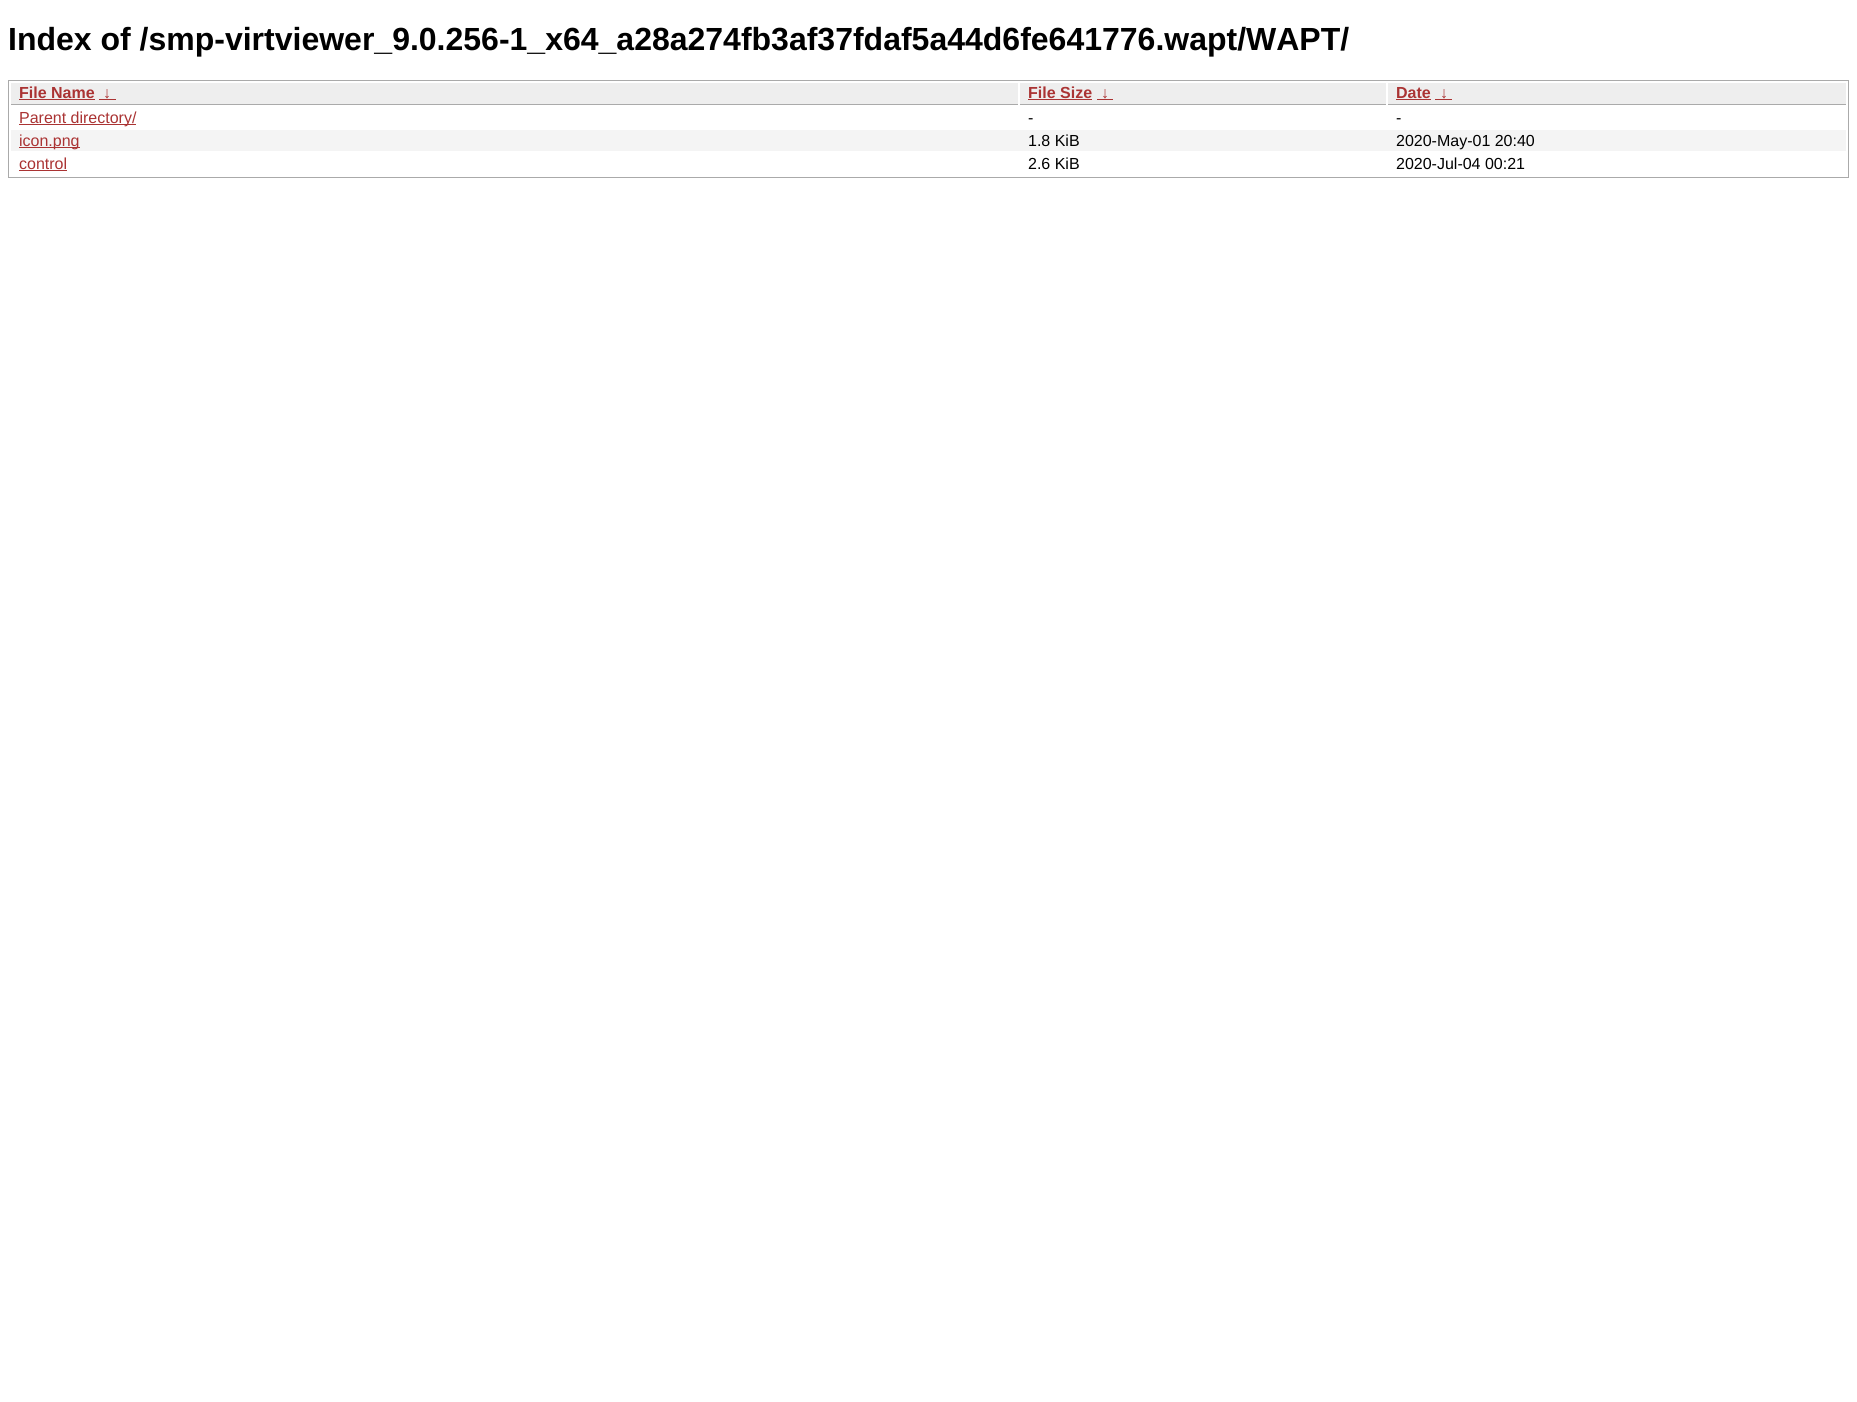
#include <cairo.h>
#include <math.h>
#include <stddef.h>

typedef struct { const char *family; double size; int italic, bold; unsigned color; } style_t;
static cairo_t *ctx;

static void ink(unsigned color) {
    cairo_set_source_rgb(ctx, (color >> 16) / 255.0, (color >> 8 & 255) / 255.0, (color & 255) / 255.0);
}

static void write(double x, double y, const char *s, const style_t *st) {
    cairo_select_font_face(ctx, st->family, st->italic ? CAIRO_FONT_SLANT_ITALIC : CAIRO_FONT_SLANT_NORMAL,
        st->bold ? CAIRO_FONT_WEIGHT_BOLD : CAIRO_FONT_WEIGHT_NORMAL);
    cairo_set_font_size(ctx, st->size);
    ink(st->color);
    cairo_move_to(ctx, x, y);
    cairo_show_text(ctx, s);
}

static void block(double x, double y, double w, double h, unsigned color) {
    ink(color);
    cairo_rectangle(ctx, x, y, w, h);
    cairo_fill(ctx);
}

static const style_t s1 = {"Liberation Sans", 32, 0, 1, 0x000000};
static const style_t s2 = {"Liberation Sans", 16, 0, 1, 0xaa3333};
static const style_t s3 = {"Liberation Sans", 16, 0, 0, 0xaa3333};
static const style_t s4 = {"Liberation Sans", 16, 0, 0, 0x000000};

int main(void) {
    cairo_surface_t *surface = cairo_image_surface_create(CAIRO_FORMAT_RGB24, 1857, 1402);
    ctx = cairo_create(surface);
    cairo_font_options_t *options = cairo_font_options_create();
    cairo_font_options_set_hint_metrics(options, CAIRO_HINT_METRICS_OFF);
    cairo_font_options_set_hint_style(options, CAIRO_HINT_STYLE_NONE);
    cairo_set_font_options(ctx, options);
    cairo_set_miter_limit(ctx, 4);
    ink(0xffffff);
    cairo_paint(ctx);
    write(8, 50, "Index of /smp-virtviewer_9.0.256-1_x64_a28a274fb3af37fdaf5a44d6fe641776.wapt/WAPT/", &s1);
    cairo_rectangle(ctx, 8.5, 80.5, 1840, 97);
    ink(0xaaaaaa);
    cairo_set_line_width(ctx, 1);
    cairo_stroke(ctx);
    block(11, 83, 1007, 21, 0xeeeeee);
    block(11, 104, 1007, 1, 0xaaaaaa);
    write(19, 98, "File Name", &s2);
    block(19, 99, 76, 1, 0xaa3333);
    write(103, 98, "↓", &s2);
    block(99, 99, 17, 1, 0xaa3333);
    block(1020, 83, 366, 21, 0xeeeeee);
    block(1020, 104, 366, 1, 0xaaaaaa);
    write(1028, 98, "File Size", &s2);
    block(1028, 99, 64, 1, 0xaa3333);
    write(1101, 98, "↓", &s2);
    block(1097, 99, 16, 1, 0xaa3333);
    block(1388, 83, 458, 21, 0xeeeeee);
    block(1388, 104, 458, 1, 0xaaaaaa);
    write(1396, 98, "Date", &s2);
    block(1396, 99, 35, 1, 0xaa3333);
    write(1440, 98, "↓", &s2);
    block(1435, 99, 17, 1, 0xaa3333);
    block(19, 124, 117, 1, 0xaa3333);
    write(19, 123, "Parent directory/", &s3);
    write(1028, 123, "-", &s4);
    write(1396, 123, "-", &s4);
    block(11, 130, 1835, 21, 0xf4f4f4);
    block(19, 147, 61, 1, 0xaa3333);
    write(19, 146, "icon.png", &s3);
    write(1028, 146, "1.8 KiB", &s4);
    write(1396, 146, "2020-May-01 20:40", &s4);
    write(19, 169, "control", &s3);
    block(19, 170, 48, 1, 0xaa3333);
    write(1028, 169, "2.6 KiB", &s4);
    write(1396, 169, "2020-Jul-04 00:21", &s4);
    cairo_surface_write_to_png(surface, "screenshot.png");
    cairo_font_options_destroy(options);
    cairo_destroy(ctx);
    cairo_surface_destroy(surface);
    return 0;
}
